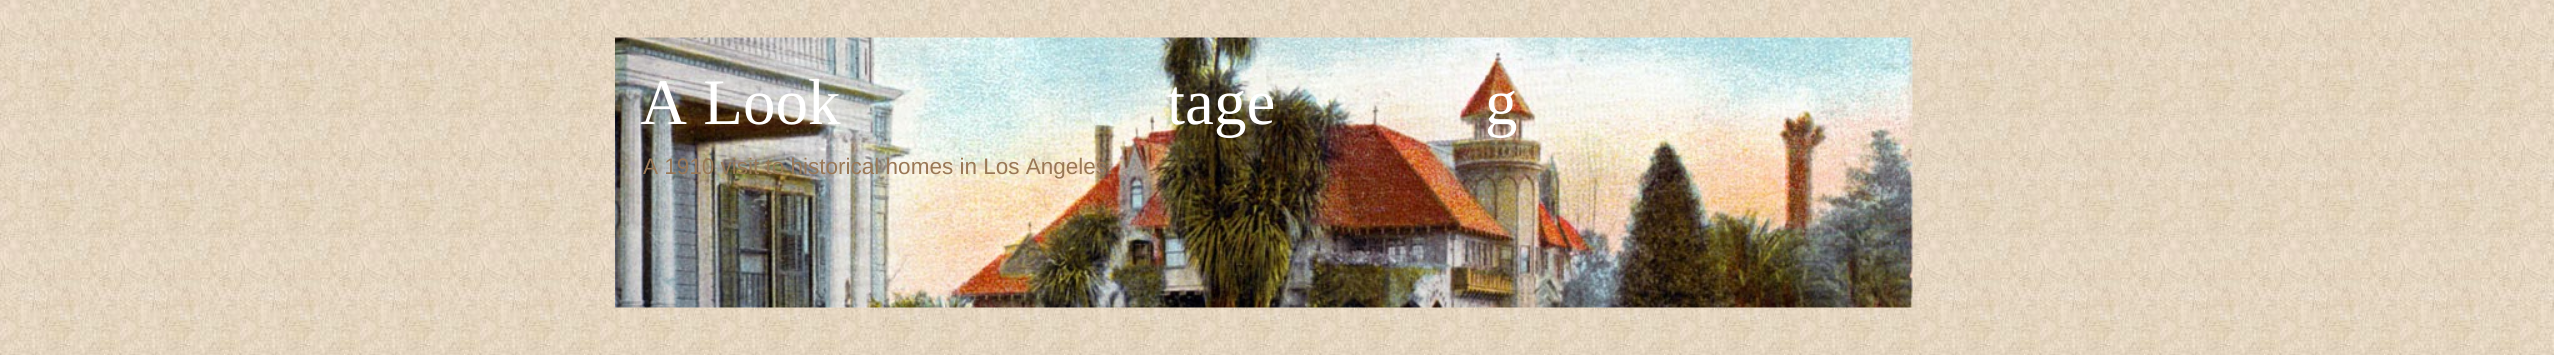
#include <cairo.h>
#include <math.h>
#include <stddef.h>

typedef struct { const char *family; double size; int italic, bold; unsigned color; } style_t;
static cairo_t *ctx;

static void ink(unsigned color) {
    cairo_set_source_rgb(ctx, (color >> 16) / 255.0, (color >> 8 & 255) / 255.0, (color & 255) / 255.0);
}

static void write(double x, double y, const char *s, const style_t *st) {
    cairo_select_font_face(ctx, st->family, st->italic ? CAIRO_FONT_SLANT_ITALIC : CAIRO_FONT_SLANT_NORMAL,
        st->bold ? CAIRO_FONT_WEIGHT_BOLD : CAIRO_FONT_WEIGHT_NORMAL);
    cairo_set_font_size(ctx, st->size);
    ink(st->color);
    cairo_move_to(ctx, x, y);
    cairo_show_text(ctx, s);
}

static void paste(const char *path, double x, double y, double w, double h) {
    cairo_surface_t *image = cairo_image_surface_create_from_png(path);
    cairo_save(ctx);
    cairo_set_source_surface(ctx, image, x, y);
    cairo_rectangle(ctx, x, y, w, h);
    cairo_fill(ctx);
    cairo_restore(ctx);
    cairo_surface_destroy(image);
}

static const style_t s1 = {"Liberation Serif", 65, 0, 0, 0xffffff};
static const style_t s2 = {"Liberation Sans", 22.5, 0, 0, 0x997755};

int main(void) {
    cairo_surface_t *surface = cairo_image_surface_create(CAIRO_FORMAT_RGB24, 2554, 355);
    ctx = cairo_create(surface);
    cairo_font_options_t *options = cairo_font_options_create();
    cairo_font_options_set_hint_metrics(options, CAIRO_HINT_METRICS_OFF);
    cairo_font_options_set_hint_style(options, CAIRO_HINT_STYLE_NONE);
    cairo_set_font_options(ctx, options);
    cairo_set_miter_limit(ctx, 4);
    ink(0xffffff);
    cairo_paint(ctx);
    paste("pic1.png", 0, 0, 2554, 355);
    paste("pic2.png", 615, 37, 1298, 271);
    write(640, 124, "A Look", &s1);
    write(1167, 124, "tage", &s1);
    write(1485, 124, "g", &s1);
    write(643, 174, "A 1910 visit to historical homes in Los Angeles.", &s2);
    cairo_surface_write_to_png(surface, "screenshot.png");
    cairo_font_options_destroy(options);
    cairo_destroy(ctx);
    cairo_surface_destroy(surface);
    return 0;
}
